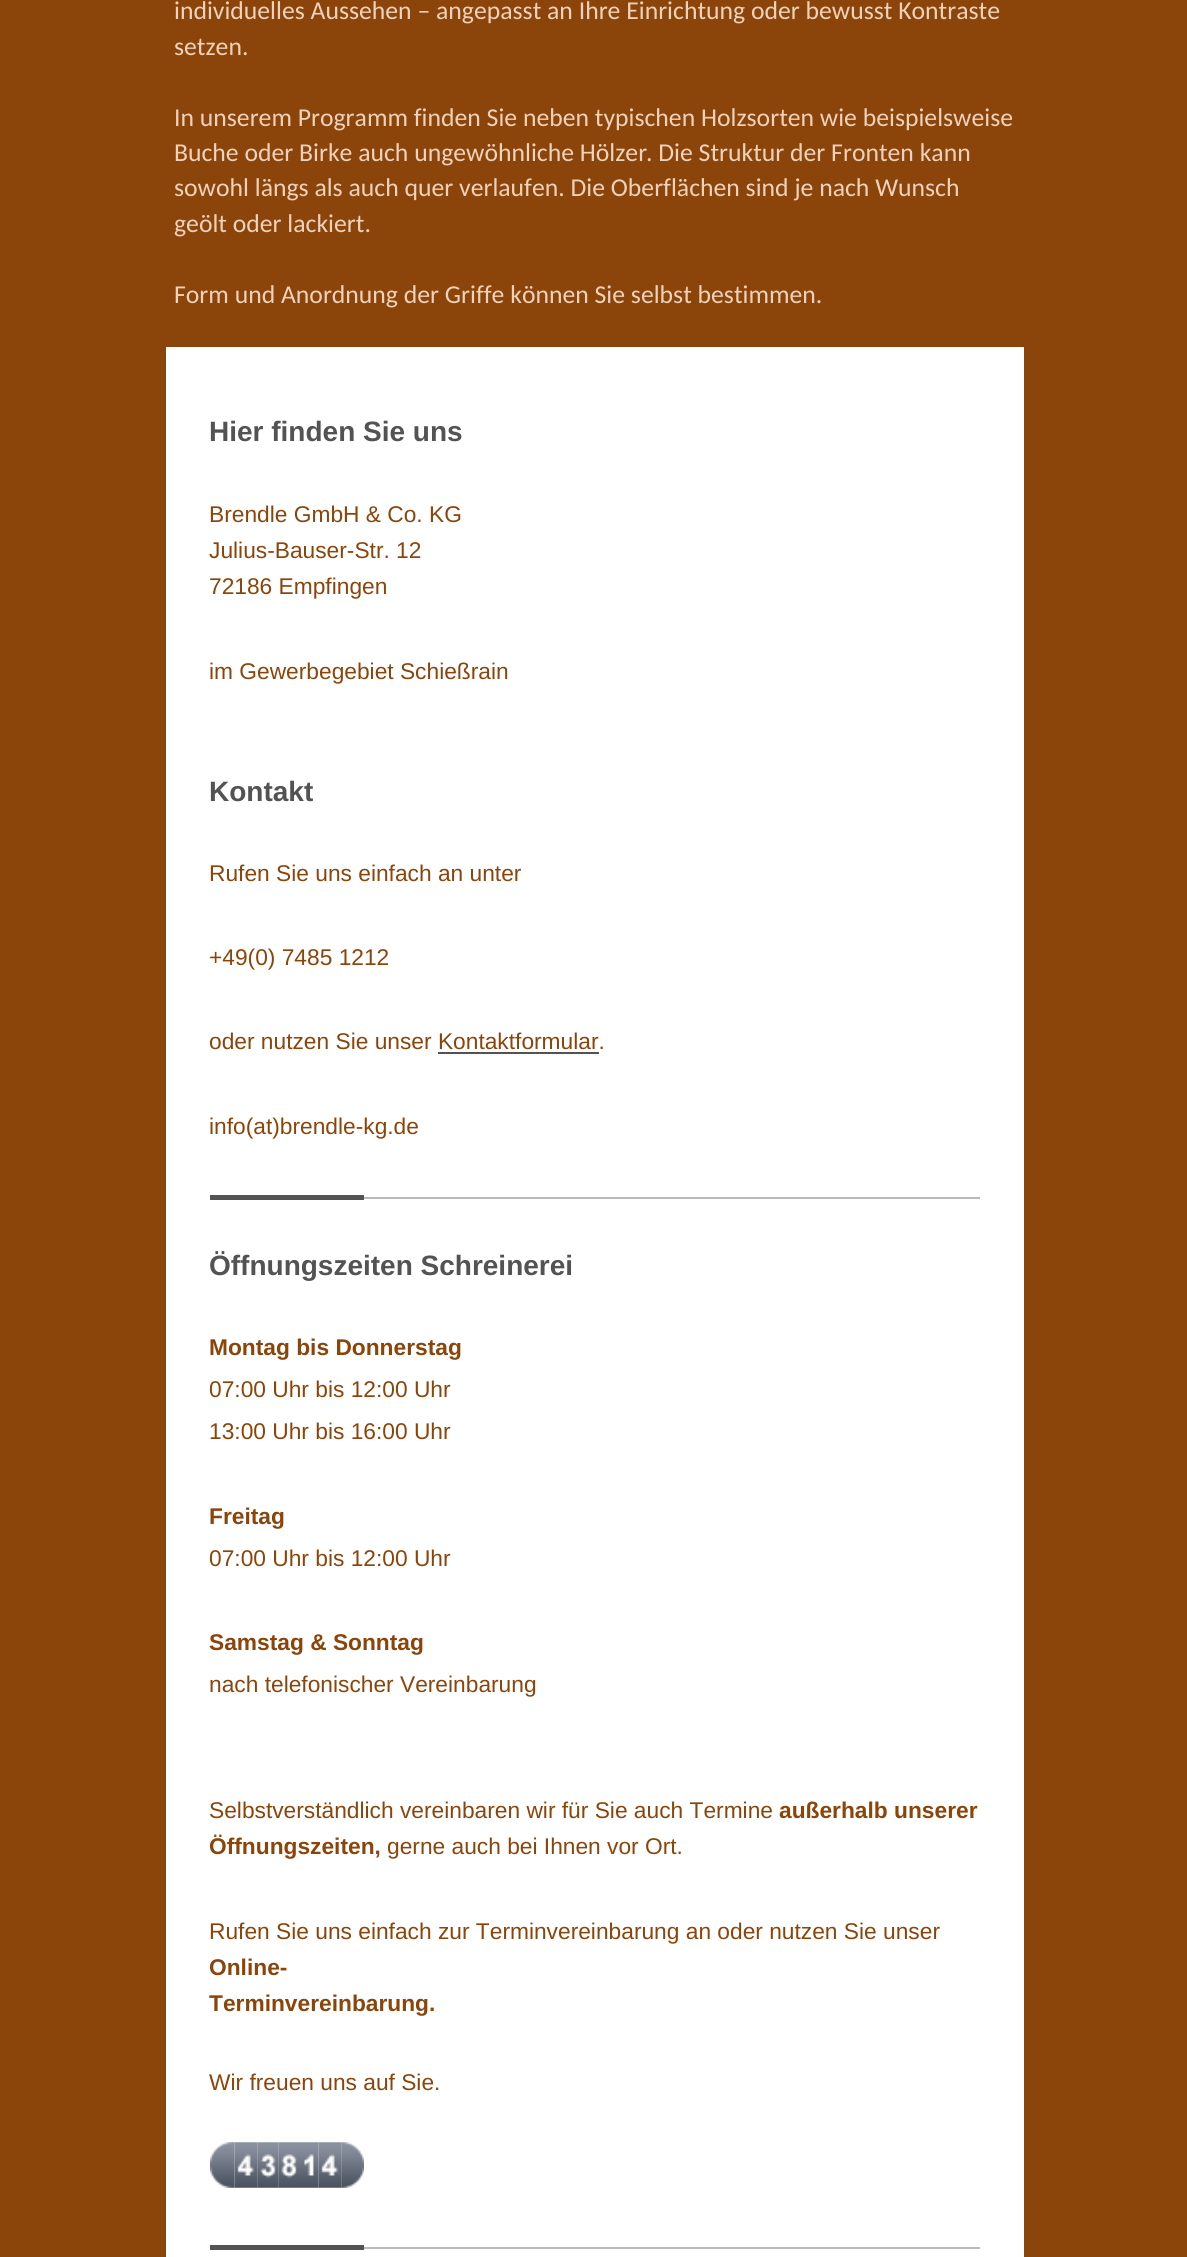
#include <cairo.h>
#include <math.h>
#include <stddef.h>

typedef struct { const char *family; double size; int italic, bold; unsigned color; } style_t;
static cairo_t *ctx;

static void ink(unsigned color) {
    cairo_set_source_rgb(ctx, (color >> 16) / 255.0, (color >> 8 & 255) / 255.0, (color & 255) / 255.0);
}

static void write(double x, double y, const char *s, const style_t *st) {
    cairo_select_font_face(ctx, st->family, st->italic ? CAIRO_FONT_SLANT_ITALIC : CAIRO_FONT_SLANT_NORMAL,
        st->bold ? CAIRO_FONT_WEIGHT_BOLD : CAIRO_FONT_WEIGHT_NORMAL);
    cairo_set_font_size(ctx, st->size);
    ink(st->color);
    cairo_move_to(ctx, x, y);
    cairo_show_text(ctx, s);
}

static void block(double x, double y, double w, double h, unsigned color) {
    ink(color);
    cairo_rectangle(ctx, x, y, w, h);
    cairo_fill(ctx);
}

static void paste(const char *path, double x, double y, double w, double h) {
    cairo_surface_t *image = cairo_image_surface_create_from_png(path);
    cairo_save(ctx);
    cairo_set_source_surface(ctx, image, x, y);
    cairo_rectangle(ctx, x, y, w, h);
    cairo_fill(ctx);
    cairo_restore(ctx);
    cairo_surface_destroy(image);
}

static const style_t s1 = {"Carlito", 25.7, 0, 0, 0xf0d2ba};
static const style_t s2 = {"Liberation Sans", 28, 0, 1, 0x535353};
static const style_t s3 = {"Liberation Sans", 22.75, 0, 0, 0x8b450b};
static const style_t s4 = {"Liberation Sans", 22.75, 0, 1, 0x8b450b};

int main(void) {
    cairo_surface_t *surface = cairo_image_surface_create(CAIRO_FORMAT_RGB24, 1187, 2257);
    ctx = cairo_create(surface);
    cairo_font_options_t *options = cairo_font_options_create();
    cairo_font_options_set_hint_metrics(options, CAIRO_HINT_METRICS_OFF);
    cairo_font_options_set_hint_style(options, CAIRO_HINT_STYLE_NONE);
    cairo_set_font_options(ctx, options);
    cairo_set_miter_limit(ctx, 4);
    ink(0x8b450b);
    cairo_paint(ctx);
    write(174, 19, "individuelles Aussehen – angepasst an Ihre Einrichtung oder bewusst Kontraste", &s1);
    write(174, 55, "setzen.", &s1);
    write(174, 126, "In unserem Programm finden Sie neben typischen Holzsorten wie beispielsweise", &s1);
    write(174, 161, "Buche oder Birke auch ungewöhnliche Hölzer", &s1);
    write(646, 161, ". Die Struktur der Fronten kann", &s1);
    write(174, 196, "sowohl längs als auch quer verlaufen. Die Oberflächen sind je nach Wunsch", &s1);
    write(174, 232, "geölt oder lackiert.", &s1);
    write(174, 303, "Form und Anordnung der Griffe können Sie selbst bestimmen.", &s1);
    block(166, 347, 858, 1910, 0xffffff);
    write(209, 441, "Hier finden Sie uns", &s2);
    write(209, 522, "Brendle GmbH & Co. KG", &s3);
    write(209, 558, "Julius-Bauser-Str. 12", &s3);
    write(209, 594, "72186 Empfingen", &s3);
    write(209, 679, "im Gewerbegebiet Schießrain", &s3);
    write(209, 801, "Kontakt", &s2);
    write(209, 881, "Rufen Sie uns einfach an unter", &s3);
    write(209, 965, "+49(0) 7485 1212", &s3);
    write(209, 1049, "oder nutzen Sie unser Kontaktformular.", &s3);
    block(438, 1052, 161, 2, 0x535353);
    write(209, 1134, "info(at)brendle-kg.de", &s3);
    block(364, 1197, 616, 2, 0xbababa);
    block(210, 1195, 154, 5, 0x535353);
    write(209, 1275, "Öffnungszeiten Schreinerei", &s2);
    write(209, 1355, "Montag bis Donnerstag", &s4);
    write(209, 1397, "07:00 Uhr bis 12:00 Uhr", &s3);
    write(209, 1439, "13:00 Uhr bis 16:00 Uhr", &s3);
    write(209, 1524, "Freitag", &s4);
    write(209, 1566, "07:00 Uhr bis 12:00 Uhr", &s3);
    write(209, 1650, "Samstag & Sonntag", &s4);
    write(209, 1692, "nach telefonischer Vereinbarung", &s3);
    write(209, 1818, "Selbstverständlich vereinbaren wir für Sie auch Termine", &s3);
    write(779, 1818, "außerhalb unserer", &s4);
    write(209, 1854, "Öffnungszeiten,", &s4);
    write(387, 1854, "gerne auch bei Ihnen vor Ort.", &s3);
    write(209, 1939, "Rufen Sie uns einfach zur Terminvereinbarung an oder nutzen Sie unser", &s3);
    write(209, 1975, "Online-", &s4);
    write(209, 2011, "Terminvereinbarung.", &s4);
    write(209, 2090, "Wir freuen uns auf Sie.", &s3);
    paste("pic1.png", 210, 2142, 25, 46);
    paste("pic2.png", 234, 2142, 24, 46);
    paste("pic3.png", 257, 2142, 22, 46);
    paste("pic4.png", 278, 2142, 23, 46);
    paste("pic5.png", 301, 2142, 18, 46);
    paste("pic2.png", 318, 2142, 24, 46);
    paste("pic6.png", 341, 2142, 23, 46);
    block(364, 2247, 616, 2, 0xbababa);
    block(210, 2245, 154, 5, 0x535353);
    cairo_surface_write_to_png(surface, "screenshot.png");
    cairo_font_options_destroy(options);
    cairo_destroy(ctx);
    cairo_surface_destroy(surface);
    return 0;
}
